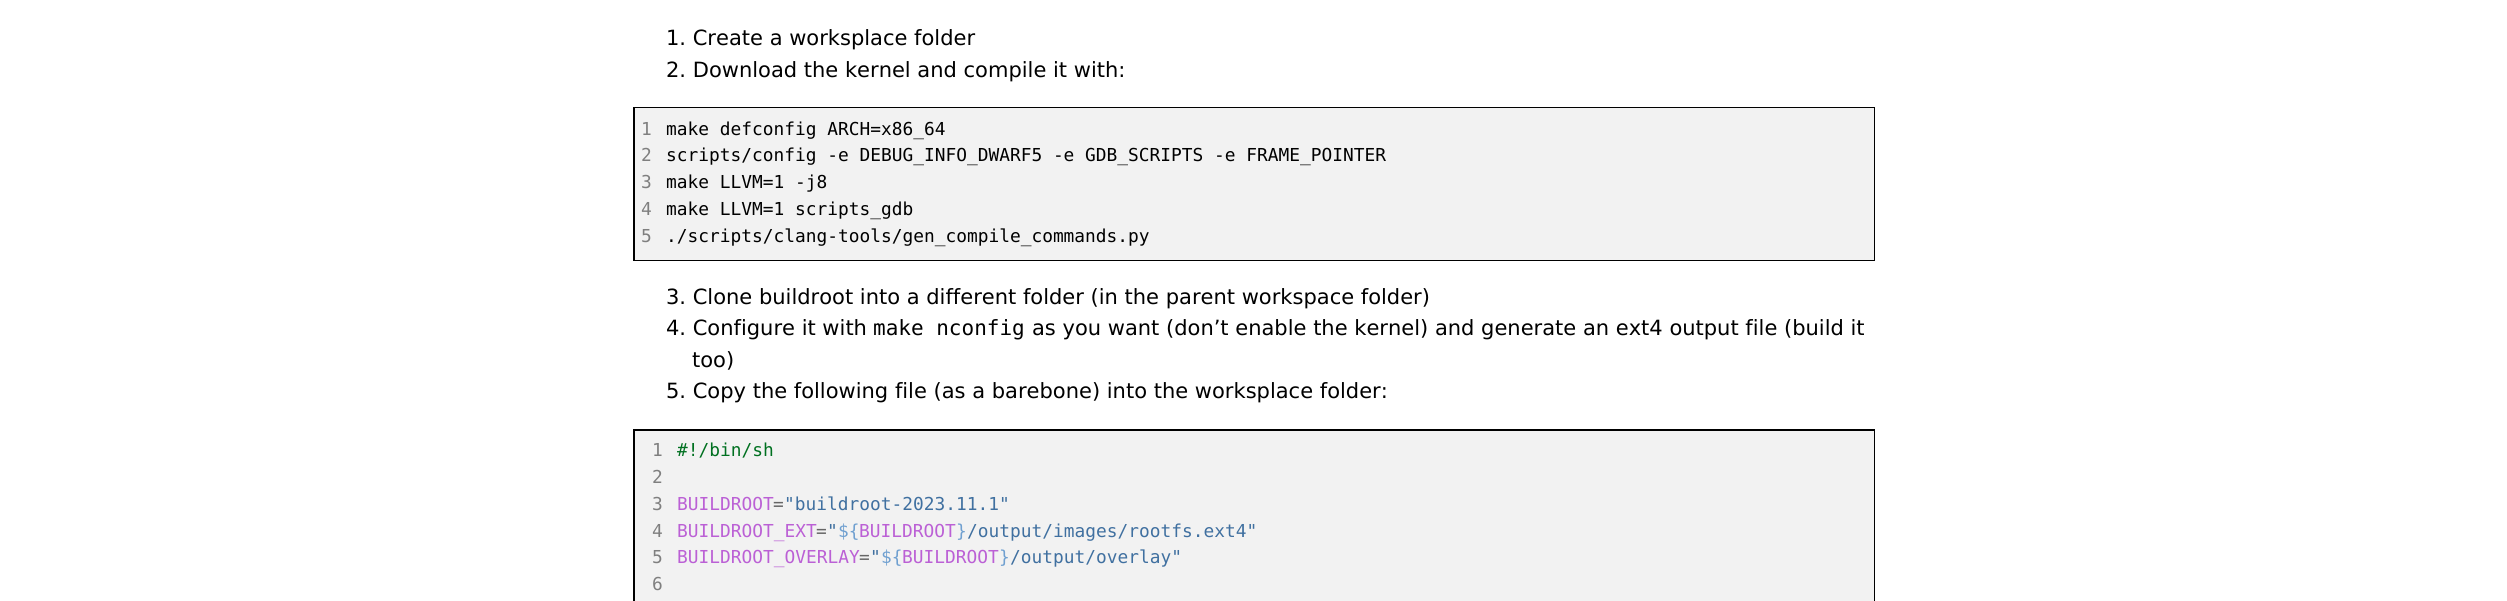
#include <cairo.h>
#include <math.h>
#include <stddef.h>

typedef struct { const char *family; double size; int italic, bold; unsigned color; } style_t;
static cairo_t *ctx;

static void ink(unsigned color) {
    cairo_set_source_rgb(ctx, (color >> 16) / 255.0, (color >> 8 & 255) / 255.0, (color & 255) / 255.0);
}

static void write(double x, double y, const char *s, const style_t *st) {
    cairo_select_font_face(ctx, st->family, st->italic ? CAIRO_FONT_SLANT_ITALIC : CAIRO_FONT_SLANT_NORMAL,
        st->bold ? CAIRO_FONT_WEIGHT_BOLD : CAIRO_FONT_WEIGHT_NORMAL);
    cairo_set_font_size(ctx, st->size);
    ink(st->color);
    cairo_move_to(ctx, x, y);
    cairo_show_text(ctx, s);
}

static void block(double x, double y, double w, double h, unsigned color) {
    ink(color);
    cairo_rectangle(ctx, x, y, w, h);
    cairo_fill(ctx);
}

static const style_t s1 = {"DejaVu Sans", 21, 0, 0, 0x000000};
static const style_t s2 = {"DejaVu Sans Mono", 17.85, 0, 0, 0x7f7f7f};
static const style_t s3 = {"DejaVu Sans Mono", 17.85, 0, 0, 0x000000};
static const style_t s4 = {"DejaVu Sans Mono", 21, 0, 0, 0x000000};
static const style_t s5 = {"DejaVu Sans Mono", 17.85, 0, 0, 0x007020};
static const style_t s6 = {"DejaVu Sans Mono", 17.85, 0, 0, 0xbb60d5};
static const style_t s7 = {"DejaVu Sans Mono", 17.85, 0, 0, 0x666666};
static const style_t s8 = {"DejaVu Sans Mono", 17.85, 0, 0, 0x4070a0};
static const style_t s9 = {"DejaVu Sans Mono", 17.85, 0, 0, 0x70a0d0};

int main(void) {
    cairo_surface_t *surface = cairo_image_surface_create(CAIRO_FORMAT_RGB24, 2507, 601);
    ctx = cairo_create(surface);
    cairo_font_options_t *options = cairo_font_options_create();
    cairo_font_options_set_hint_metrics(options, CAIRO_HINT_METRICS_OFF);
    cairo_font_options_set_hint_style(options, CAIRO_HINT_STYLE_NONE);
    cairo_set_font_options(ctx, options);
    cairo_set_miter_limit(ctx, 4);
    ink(0xffffff);
    cairo_paint(ctx);
    write(666, 45, "1. Create a worksplace folder", &s1);
    write(666, 77, "2. Download the kernel and compile it with:", &s1);
    cairo_rectangle(ctx, 634, 108, 1240, 152);
    cairo_stroke(ctx);
    block(635, 108, 1239, 152, 0xf2f2f2);
    write(641, 135, "1", &s2);
    write(641, 161, "2", &s2);
    write(641, 188, "3", &s2);
    write(641, 215, "4", &s2);
    write(641, 242, "5", &s2);
    write(666, 135, "make defconfig ARCH=x86_64", &s3);
    write(666, 161, "scripts/config -e DEBUG_INFO_DWARF5 -e GDB_SCRIPTS -e FRAME_POINTER", &s3);
    write(666, 188, "make LLVM=1 -j8", &s3);
    write(666, 215, "make LLVM=1 scripts_gdb", &s3);
    write(666, 242, "./scripts/clang-tools/gen_compile_commands.py", &s3);
    write(666, 304, "3. Clone buildroot into a different folder (in the parent workspace folder)", &s1);
    write(666, 335, "4. Configure it with", &s1);
    write(873, 335, "make nconfig", &s4);
    write(1032, 335, "as you want (don’t enable the kernel) and generate an ext4 output file (build it", &s1);
    write(692, 367, "too)", &s1);
    write(666, 398, "5. Copy the following file (as a barebone) into the worksplace folder:", &s1);
    cairo_rectangle(ctx, 634, 430, 1240, 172);
    cairo_stroke(ctx);
    block(635, 431, 1239, 170, 0xf2f2f2);
    write(652, 456, "1", &s2);
    write(652, 483, "2", &s2);
    write(652, 510, "3", &s2);
    write(652, 537, "4", &s2);
    write(652, 563, "5", &s2);
    write(652, 590, "6", &s2);
    write(677, 456, "#!/bin/sh", &s5);
    write(677, 510, "BUILDROOT", &s6);
    write(773, 510, "=", &s7);
    write(784, 510, "\"buildroot-2023.11.1\"", &s8);
    write(677, 537, "BUILDROOT_EXT", &s6);
    write(816, 537, "=", &s7);
    write(827, 537, "\"", &s8);
    write(838, 537, "${", &s9);
    write(859, 537, "BUILDROOT", &s6);
    write(956, 537, "}", &s9);
    write(967, 537, "/output/images/rootfs.ext4\"", &s8);
    write(677, 563, "BUILDROOT_OVERLAY", &s6);
    write(859, 563, "=", &s7);
    write(870, 563, "\"", &s8);
    write(881, 563, "${", &s9);
    write(902, 563, "BUILDROOT", &s6);
    write(999, 563, "}", &s9);
    write(1010, 563, "/output/overlay\"", &s8);
    cairo_surface_write_to_png(surface, "screenshot.png");
    cairo_font_options_destroy(options);
    cairo_destroy(ctx);
    cairo_surface_destroy(surface);
    return 0;
}
